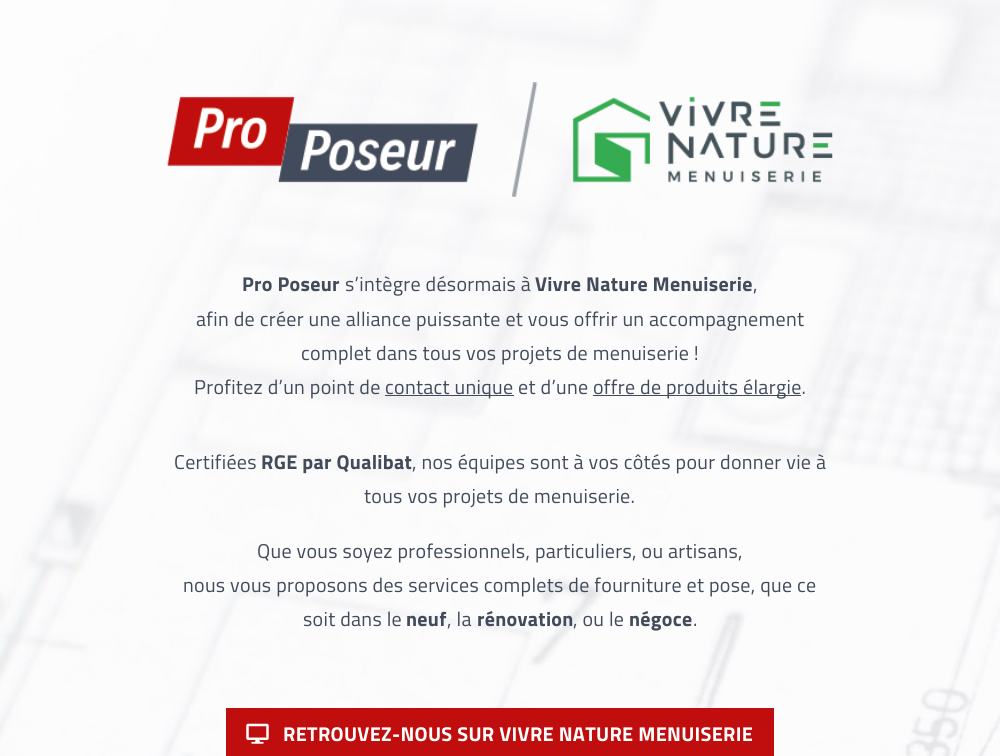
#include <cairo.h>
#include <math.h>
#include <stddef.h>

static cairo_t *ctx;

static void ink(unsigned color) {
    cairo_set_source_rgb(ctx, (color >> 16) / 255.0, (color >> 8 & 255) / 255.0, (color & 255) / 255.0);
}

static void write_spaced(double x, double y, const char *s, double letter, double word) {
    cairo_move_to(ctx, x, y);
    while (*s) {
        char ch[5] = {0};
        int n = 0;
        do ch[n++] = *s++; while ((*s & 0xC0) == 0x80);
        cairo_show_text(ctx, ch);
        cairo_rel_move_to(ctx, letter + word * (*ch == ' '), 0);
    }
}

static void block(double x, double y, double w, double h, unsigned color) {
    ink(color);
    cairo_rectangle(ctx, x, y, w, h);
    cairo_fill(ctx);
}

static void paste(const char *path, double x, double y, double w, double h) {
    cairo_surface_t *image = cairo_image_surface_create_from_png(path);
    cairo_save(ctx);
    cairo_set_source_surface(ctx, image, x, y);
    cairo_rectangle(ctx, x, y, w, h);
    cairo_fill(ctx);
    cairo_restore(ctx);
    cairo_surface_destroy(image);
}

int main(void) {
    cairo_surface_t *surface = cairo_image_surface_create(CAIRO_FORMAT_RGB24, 1000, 756);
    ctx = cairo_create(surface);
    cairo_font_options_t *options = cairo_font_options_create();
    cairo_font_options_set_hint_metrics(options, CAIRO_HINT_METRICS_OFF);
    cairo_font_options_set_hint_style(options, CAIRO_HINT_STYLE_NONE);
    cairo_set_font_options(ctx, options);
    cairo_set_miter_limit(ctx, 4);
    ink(0xffffff);
    cairo_paint(ctx);
    paste("pic1.png", 0, 0, 1000, 756);
    paste("pic2.png", 167, 82, 666, 115);
    cairo_select_font_face(ctx, "Titillium Web", CAIRO_FONT_SLANT_NORMAL, CAIRO_FONT_WEIGHT_BOLD);
    cairo_set_font_size(ctx, 20);
    ink(0x424b5b);
    write_spaced(242, 291, "Pro Poseur", 0.3, 0);
    cairo_select_font_face(ctx, "Titillium Web", CAIRO_FONT_SLANT_NORMAL, CAIRO_FONT_WEIGHT_NORMAL);
    write_spaced(345, 291, "s’intègre désormais à", 0.3, 0);
    cairo_select_font_face(ctx, "Titillium Web", CAIRO_FONT_SLANT_NORMAL, CAIRO_FONT_WEIGHT_BOLD);
    write_spaced(535, 291, "Vivre Nature Menuiserie", 0.3, 0);
    cairo_select_font_face(ctx, "Titillium Web", CAIRO_FONT_SLANT_NORMAL, CAIRO_FONT_WEIGHT_NORMAL);
    write_spaced(753, 291, ",", 0.3, 0);
    write_spaced(196, 326, "afin de créer une alliance puissante et vous offrir un accompagnement", 0.3, 0);
    write_spaced(301, 360, "complet dans tous vos projets de menuiserie !", 0.3, 0);
    write_spaced(194, 394, "Profitez d’un point de", 0.3, 0);
    block(385, 395, 129, 1, 0x424b5b);
    write_spaced(385, 394, "contact unique et d’une", 0.3, 0);
    block(593, 395, 208, 1, 0x424b5b);
    write_spaced(593, 394, "offre de produits élargie.", 0.3, 0);
    write_spaced(174, 469, "Certifiées", 0.3, 0);
    cairo_select_font_face(ctx, "Titillium Web", CAIRO_FONT_SLANT_NORMAL, CAIRO_FONT_WEIGHT_BOLD);
    write_spaced(261, 469, "RGE par Qualibat", 0.3, 0);
    cairo_select_font_face(ctx, "Titillium Web", CAIRO_FONT_SLANT_NORMAL, CAIRO_FONT_WEIGHT_NORMAL);
    write_spaced(412, 469, ", nos équipes sont à vos côtés pour donner vie à", 0.3, 0);
    write_spaced(364, 503, "tous vos projets de menuiserie.", 0.3, 0);
    write_spaced(257, 558, "Que vous soyez professionnels, particuliers, ou artisans,", 0.3, 0);
    write_spaced(183, 592, "nous vous proposons des services complets de fourniture et pose, que ce", 0.3, 0);
    write_spaced(303, 626, "soit dans le", 0.3, 0);
    cairo_select_font_face(ctx, "Titillium Web", CAIRO_FONT_SLANT_NORMAL, CAIRO_FONT_WEIGHT_BOLD);
    write_spaced(406, 626, "neuf", 0.3, 0);
    cairo_select_font_face(ctx, "Titillium Web", CAIRO_FONT_SLANT_NORMAL, CAIRO_FONT_WEIGHT_NORMAL);
    write_spaced(447, 626, ", la", 0.3, 0);
    cairo_select_font_face(ctx, "Titillium Web", CAIRO_FONT_SLANT_NORMAL, CAIRO_FONT_WEIGHT_BOLD);
    write_spaced(477, 626, "rénovation", 0.3, 0);
    cairo_select_font_face(ctx, "Titillium Web", CAIRO_FONT_SLANT_NORMAL, CAIRO_FONT_WEIGHT_NORMAL);
    write_spaced(573, 626, ", ou le", 0.3, 0);
    cairo_select_font_face(ctx, "Titillium Web", CAIRO_FONT_SLANT_NORMAL, CAIRO_FONT_WEIGHT_BOLD);
    write_spaced(629, 626, "négoce", 0.3, 0);
    cairo_select_font_face(ctx, "Titillium Web", CAIRO_FONT_SLANT_NORMAL, CAIRO_FONT_WEIGHT_NORMAL);
    write_spaced(693, 626, ".", 0.3, 0);
    block(226, 708, 548, 48, 0xc00d0d);
    paste("pic3.png", 246, 723, 23, 21);
    cairo_select_font_face(ctx, "Titillium Web", CAIRO_FONT_SLANT_NORMAL, CAIRO_FONT_WEIGHT_BOLD);
    ink(0xffffff);
    write_spaced(283, 741, "RETROUVEZ-NOUS SUR VIVRE NATURE MENUISERIE", 0.3, 0);
    cairo_surface_write_to_png(surface, "screenshot.png");
    cairo_font_options_destroy(options);
    cairo_destroy(ctx);
    cairo_surface_destroy(surface);
    return 0;
}
